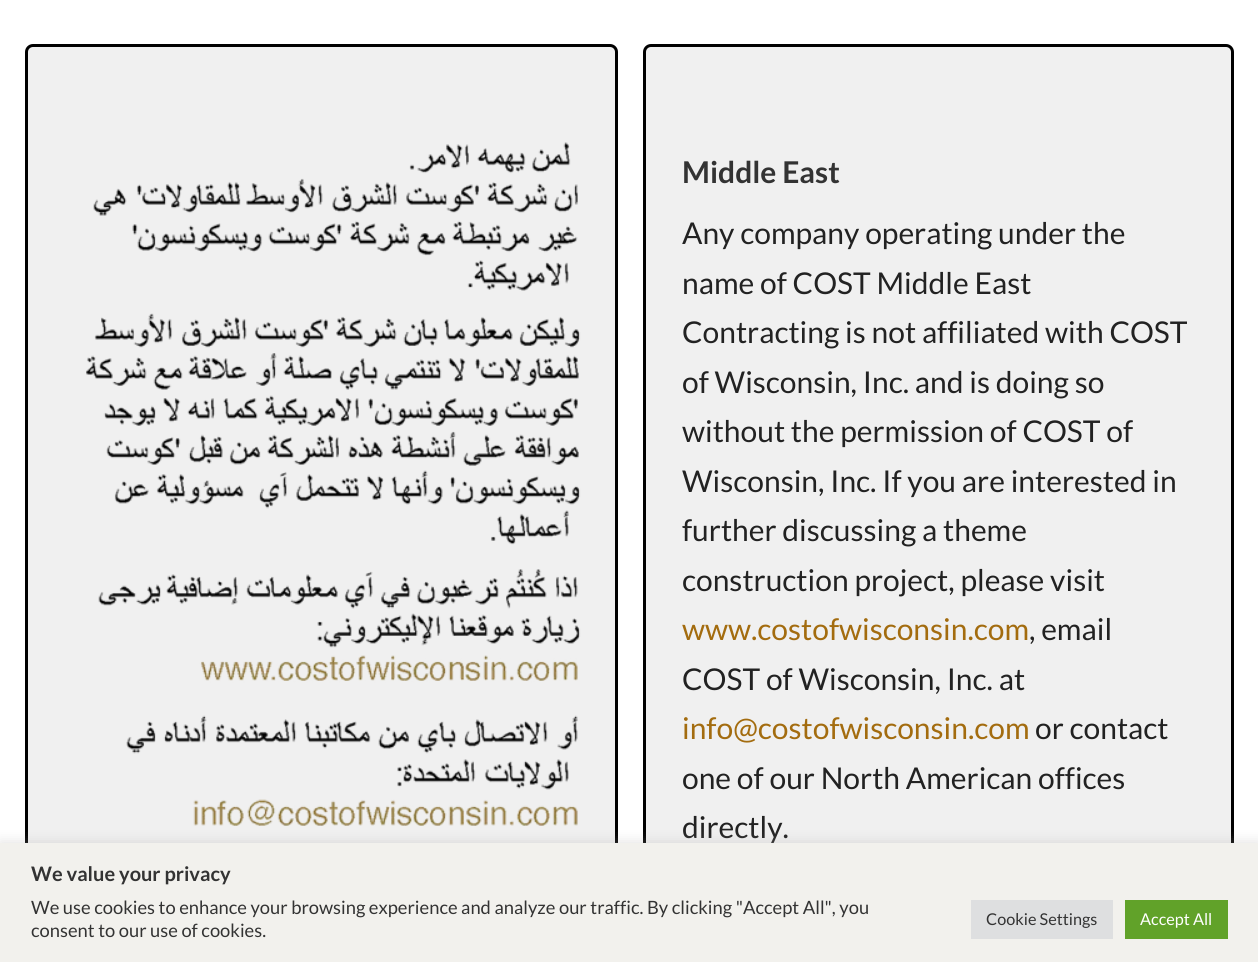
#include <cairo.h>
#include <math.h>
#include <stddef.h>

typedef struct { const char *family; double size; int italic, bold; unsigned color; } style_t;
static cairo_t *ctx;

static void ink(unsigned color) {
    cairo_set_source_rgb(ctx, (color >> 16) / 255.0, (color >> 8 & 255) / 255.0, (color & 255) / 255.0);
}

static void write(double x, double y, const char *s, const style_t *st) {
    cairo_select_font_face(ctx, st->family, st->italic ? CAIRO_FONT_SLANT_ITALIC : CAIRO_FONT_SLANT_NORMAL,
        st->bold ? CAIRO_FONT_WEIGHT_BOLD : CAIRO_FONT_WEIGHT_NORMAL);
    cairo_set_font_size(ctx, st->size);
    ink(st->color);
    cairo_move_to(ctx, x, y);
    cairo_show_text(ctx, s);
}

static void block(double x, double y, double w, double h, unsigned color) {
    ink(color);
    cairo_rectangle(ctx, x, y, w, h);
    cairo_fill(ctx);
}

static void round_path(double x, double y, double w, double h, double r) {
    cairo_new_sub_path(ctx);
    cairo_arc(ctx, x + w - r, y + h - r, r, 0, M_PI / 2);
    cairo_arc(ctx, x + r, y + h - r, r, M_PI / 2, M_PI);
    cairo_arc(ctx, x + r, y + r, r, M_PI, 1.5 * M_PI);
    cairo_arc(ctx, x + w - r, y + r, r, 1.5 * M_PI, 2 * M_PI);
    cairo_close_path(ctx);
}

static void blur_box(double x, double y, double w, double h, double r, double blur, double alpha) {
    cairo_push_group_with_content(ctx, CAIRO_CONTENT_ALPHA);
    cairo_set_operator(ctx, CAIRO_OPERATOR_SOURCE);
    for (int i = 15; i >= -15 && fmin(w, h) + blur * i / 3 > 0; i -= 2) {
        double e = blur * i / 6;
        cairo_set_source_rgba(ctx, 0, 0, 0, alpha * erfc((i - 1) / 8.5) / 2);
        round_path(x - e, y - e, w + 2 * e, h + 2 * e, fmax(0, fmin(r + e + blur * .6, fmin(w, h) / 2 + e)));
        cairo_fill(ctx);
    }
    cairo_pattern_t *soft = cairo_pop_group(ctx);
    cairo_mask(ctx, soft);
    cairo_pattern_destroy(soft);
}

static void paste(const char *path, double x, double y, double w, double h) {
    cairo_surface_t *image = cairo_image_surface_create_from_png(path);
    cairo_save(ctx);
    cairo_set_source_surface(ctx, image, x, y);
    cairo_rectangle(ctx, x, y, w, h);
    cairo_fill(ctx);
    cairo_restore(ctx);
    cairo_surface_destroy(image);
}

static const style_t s1 = {"Lato", 30, 0, 1, 0x333333};
static const style_t s2 = {"Lato", 30, 0, 0, 0x222222};
static const style_t s3 = {"Lato", 30, 0, 0, 0xa36c0f};
static const style_t s4 = {"Lato", 20, 0, 1, 0x333333};
static const style_t s5 = {"Lato", 18.35, 0, 0, 0x333333};
static const style_t s6 = {"Lato", 16.25, 0, 0, 0x333333};
static const style_t s7 = {"Lato", 16.25, 0, 0, 0xffffff};

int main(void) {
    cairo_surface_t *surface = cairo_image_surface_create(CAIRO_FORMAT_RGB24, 1258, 962);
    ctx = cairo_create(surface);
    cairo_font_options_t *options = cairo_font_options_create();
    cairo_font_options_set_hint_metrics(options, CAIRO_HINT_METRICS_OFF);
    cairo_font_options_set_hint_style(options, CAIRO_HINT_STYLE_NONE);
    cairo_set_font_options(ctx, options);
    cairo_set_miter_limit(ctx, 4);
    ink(0xffffff);
    cairo_paint(ctx);
    ink(0xf0f0f0);
    round_path(26.5, 45.5, 590, 882, 6.5);
    cairo_fill_preserve(ctx);
    ink(0x000000);
    cairo_set_line_width(ctx, 3);
    cairo_stroke(ctx);
    paste("pic1.png", 86, 142, 495, 684);
    ink(0xf0f0f0);
    round_path(644.5, 45.5, 588, 882, 6.5);
    cairo_fill_preserve(ctx);
    ink(0x000000);
    cairo_stroke(ctx);
    write(682, 183, "Middle East", &s1);
    write(682, 244, "Any company operating under the", &s2);
    write(682, 294, "name of COST Middle East", &s2);
    write(682, 343, "Contracting is not affiliated with COST", &s2);
    write(682, 393, "of Wisconsin, Inc. and is doing so", &s2);
    write(682, 442, "without the permission of COST of", &s2);
    write(682, 492, "Wisconsin, Inc. If you are interested in", &s2);
    write(682, 541, "further discussing a theme", &s2);
    write(682, 591, "construction project, please visit", &s2);
    write(682, 640, "www.costofwisconsin.com", &s3);
    write(1029, 640, ", email", &s2);
    write(682, 690, "COST of Wisconsin, Inc. at", &s2);
    write(682, 739, "info@costofwisconsin.com", &s3);
    write(1035, 739, "or contact", &s2);
    write(682, 789, "one of our North American offices", &s2);
    write(682, 838, "directly.", &s2);
    ink(0xacabab);
    blur_box(0, 841, 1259, 120, 0, 6, 0.3);
    block(0, 843, 1258, 119, 0xf2f1ed);
    write(31, 881, "We value your privacy", &s4);
    write(31, 914, "We use cookies to enhance your browsing experience and analyze our traffic. By clicking \"Accept All\", you", &s5);
    write(31, 937, "consent to our use of cookies.", &s5);
    block(971, 900, 142, 39, 0xdedfe0);
    write(986, 925, "Cookie Settings", &s6);
    block(1125, 900, 103, 39, 0x61a229);
    write(1140, 925, "Accept All", &s7);
    cairo_surface_write_to_png(surface, "screenshot.png");
    cairo_font_options_destroy(options);
    cairo_destroy(ctx);
    cairo_surface_destroy(surface);
    return 0;
}
